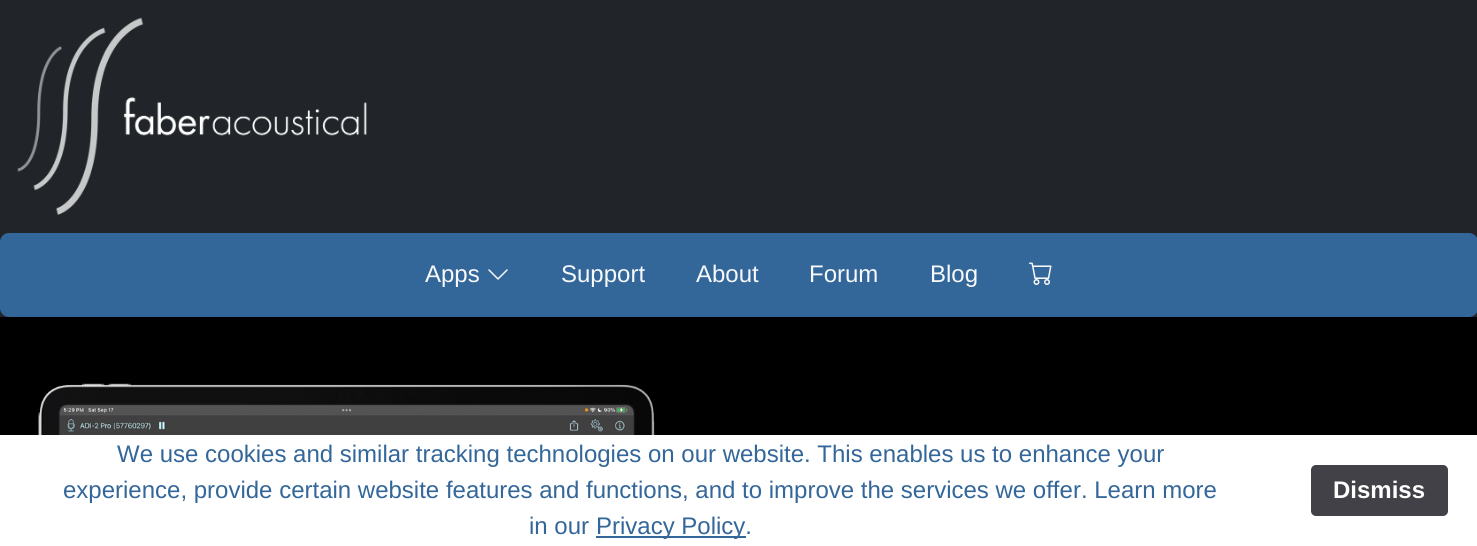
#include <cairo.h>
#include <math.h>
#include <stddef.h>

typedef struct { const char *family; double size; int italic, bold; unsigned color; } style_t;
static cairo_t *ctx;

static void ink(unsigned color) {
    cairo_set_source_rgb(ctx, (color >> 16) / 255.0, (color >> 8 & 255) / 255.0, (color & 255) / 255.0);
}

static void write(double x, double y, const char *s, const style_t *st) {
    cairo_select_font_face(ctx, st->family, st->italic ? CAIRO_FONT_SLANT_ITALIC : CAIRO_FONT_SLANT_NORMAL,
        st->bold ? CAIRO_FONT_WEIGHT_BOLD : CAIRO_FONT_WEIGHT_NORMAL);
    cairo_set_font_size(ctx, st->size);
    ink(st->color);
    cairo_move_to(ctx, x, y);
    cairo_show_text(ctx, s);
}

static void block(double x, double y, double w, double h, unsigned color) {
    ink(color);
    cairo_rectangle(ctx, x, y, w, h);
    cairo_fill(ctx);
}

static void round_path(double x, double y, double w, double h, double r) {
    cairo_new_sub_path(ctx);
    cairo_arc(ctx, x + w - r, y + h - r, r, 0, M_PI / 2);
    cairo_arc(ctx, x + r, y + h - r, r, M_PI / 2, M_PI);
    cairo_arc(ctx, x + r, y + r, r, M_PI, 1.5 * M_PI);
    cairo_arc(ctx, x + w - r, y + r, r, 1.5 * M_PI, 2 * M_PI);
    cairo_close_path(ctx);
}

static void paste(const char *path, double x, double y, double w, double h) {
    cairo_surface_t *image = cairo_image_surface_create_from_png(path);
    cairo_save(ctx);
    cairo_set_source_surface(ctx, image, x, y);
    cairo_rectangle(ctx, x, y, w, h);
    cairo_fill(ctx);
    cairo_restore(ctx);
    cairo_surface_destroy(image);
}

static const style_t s1 = {"Liberation Sans", 24, 0, 0, 0xf8f9fa};
static const style_t s2 = {"Liberation Sans", 24, 0, 0, 0x336699};
static const style_t s3 = {"Liberation Sans", 24, 0, 1, 0xffffff};

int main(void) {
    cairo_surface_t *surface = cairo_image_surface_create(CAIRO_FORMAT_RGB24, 1477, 546);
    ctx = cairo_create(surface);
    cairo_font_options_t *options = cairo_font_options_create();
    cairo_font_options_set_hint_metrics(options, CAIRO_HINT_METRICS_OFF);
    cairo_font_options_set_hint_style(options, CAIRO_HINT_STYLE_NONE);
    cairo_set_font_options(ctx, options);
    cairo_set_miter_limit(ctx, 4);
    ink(0x212529);
    cairo_paint(ctx);
    paste("pic1.png", 17, 17, 350, 198);
    ink(0x336699);
    round_path(0, 233, 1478, 84, 9);
    cairo_fill(ctx);
    write(425, 282, "Apps", &s1);
    paste("pic2.png", 488, 269, 20, 11);
    write(561, 282, "Support", &s1);
    write(696, 282, "About", &s1);
    write(809, 282, "Forum", &s1);
    write(930, 282, "Blog", &s1);
    paste("pic3.png", 1029, 262, 23, 23);
    block(0, 317, 1477, 118, 0x000000);
    paste("pic4.png", 38, 383, 617, 52);
    block(0, 435, 1477, 111, 0xffffff);
    write(117, 462, "We use cookies and similar tracking technologies on our website. This enables us to enhance your", &s2);
    write(63, 498, "experience, provide certain website features and functions, and to improve the services we offer. Learn more", &s2);
    write(529, 534, "in our", &s2);
    block(596, 536, 150, 2, 0x336699);
    write(596, 534, "Privacy Policy.", &s2);
    ink(0x424147);
    round_path(1311, 465, 137, 51, 5);
    cairo_fill(ctx);
    write(1333, 498, "Dismiss", &s3);
    cairo_surface_write_to_png(surface, "screenshot.png");
    cairo_font_options_destroy(options);
    cairo_destroy(ctx);
    cairo_surface_destroy(surface);
    return 0;
}
